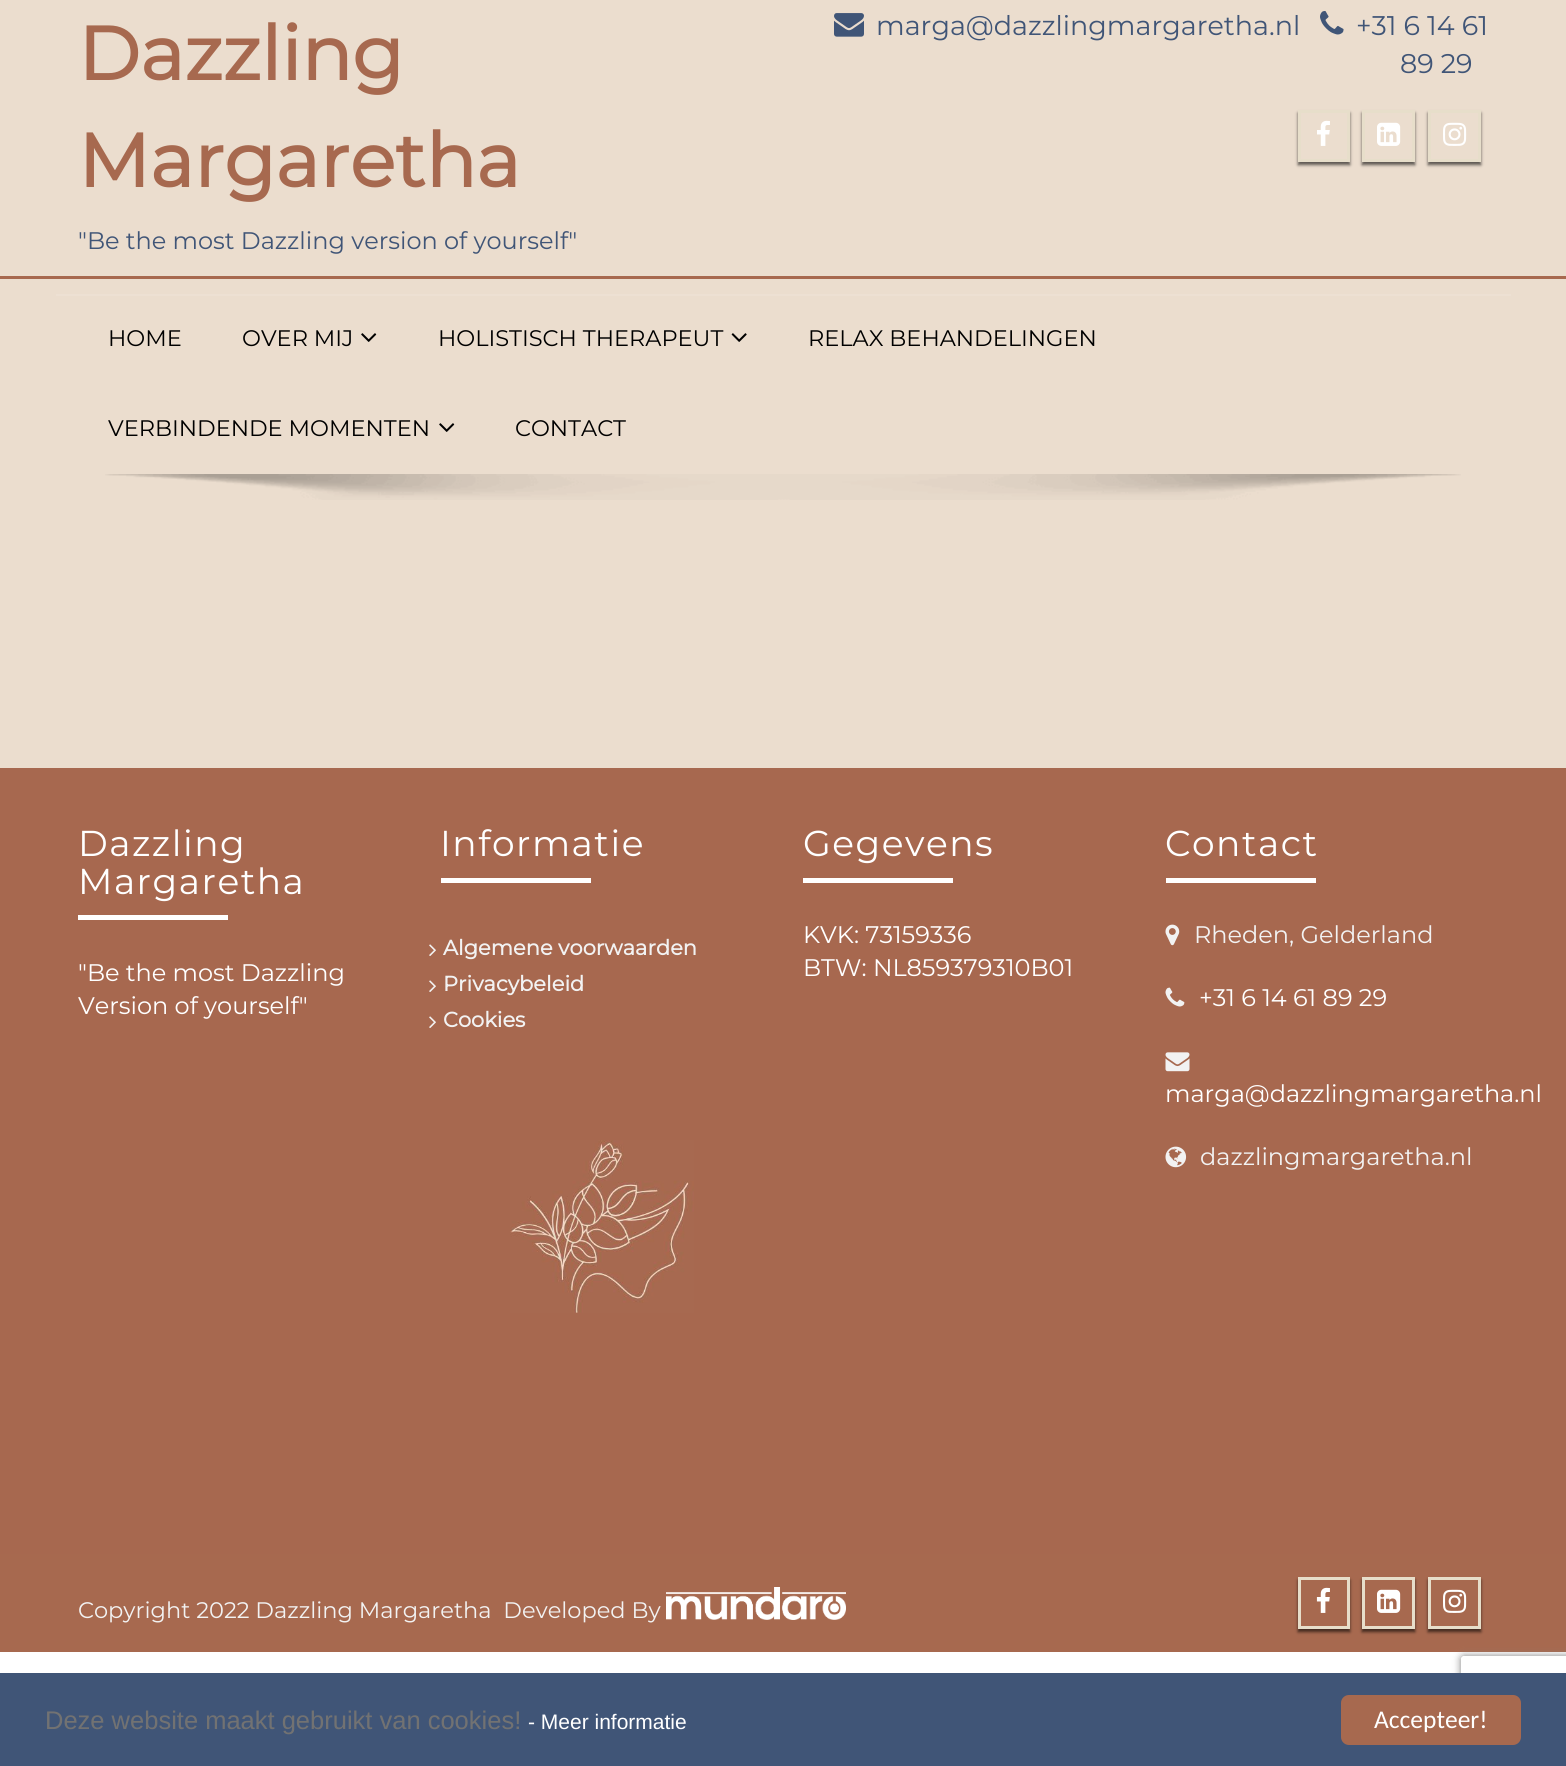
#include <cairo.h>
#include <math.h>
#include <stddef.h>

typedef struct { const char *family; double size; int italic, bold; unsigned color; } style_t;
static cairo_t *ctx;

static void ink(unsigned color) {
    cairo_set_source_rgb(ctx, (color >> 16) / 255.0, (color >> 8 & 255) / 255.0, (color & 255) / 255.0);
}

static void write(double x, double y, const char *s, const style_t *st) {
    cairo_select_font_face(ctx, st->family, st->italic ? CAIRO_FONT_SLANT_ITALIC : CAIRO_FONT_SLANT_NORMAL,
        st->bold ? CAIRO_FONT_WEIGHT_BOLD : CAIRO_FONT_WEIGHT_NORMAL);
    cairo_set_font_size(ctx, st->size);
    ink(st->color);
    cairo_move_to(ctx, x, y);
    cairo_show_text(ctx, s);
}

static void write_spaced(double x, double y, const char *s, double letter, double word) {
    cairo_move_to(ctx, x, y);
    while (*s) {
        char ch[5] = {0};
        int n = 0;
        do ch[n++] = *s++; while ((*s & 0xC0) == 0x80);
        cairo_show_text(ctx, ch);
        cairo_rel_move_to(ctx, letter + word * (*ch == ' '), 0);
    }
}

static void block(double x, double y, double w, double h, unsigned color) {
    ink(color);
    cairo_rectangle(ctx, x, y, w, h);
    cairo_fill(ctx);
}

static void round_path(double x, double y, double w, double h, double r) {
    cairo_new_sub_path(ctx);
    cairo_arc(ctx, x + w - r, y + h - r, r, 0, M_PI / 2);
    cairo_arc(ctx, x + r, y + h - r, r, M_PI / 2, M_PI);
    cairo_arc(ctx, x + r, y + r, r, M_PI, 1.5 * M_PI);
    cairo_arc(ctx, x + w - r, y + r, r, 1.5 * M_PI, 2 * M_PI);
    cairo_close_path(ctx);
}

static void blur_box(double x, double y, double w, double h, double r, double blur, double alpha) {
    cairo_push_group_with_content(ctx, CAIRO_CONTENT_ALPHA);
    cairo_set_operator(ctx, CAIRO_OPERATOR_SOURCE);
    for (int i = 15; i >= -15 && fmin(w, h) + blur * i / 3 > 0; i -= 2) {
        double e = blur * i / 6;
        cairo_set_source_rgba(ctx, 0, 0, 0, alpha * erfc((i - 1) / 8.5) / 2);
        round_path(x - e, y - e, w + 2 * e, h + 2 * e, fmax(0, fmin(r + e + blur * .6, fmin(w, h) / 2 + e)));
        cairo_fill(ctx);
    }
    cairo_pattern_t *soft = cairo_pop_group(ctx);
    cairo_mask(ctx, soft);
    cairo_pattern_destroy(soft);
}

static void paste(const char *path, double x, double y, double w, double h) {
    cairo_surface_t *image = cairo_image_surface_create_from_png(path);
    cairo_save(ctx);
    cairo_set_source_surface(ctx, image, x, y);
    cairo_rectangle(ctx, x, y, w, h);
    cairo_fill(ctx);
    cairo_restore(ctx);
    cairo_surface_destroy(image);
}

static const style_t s1 = {"Montserrat", 75, 0, 1, 0xa7694f};
static const style_t s2 = {"Montserrat Thin", 24, 0, 0, 0x405577};
static const style_t s3 = {"Montserrat Thin", 27, 0, 0, 0x405577};
static const style_t s4 = {"Montserrat Thin", 22.5, 0, 0, 0x000000};
static const style_t s5 = {"Montserrat Thin", 24, 0, 0, 0xffffff};
static const style_t s6 = {"Montserrat", 21, 0, 1, 0xf2f2f2};
static const style_t s7 = {"Montserrat Thin", 24, 0, 0, 0xf2f2f2};
static const style_t s8 = {"Montserrat Thin", 22.5, 0, 0, 0xf2f2f2};
static const style_t s9 = {"Liberation Sans", 25.5, 0, 0, 0x727272};
static const style_t s10 = {"Liberation Sans", 21, 0, 0, 0xffffff};
static const style_t s11 = {"Carlito", 25.5, 0, 0, 0xffffff};

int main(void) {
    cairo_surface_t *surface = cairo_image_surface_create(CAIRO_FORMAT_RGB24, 1566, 1766);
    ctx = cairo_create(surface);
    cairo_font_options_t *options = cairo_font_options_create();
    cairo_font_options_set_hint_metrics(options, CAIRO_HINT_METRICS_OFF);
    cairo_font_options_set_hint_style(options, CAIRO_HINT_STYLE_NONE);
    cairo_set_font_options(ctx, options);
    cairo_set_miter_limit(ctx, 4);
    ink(0xffffff);
    cairo_paint(ctx);
    block(0, 0, 1566, 768, 0xebddce);
    write(78, 80, "Dazzling", &s1);
    write(78, 187, "Margaretha", &s1);
    write(78, 249, "\"Be the most Dazzling version of yourself\"", &s2);
    paste("pic1.png", 834, 13, 30, 24);
    write(876, 35, "marga@dazzlingmargaretha.nl", &s3);
    paste("pic2.png", 1320, 11, 24, 24);
    write(1356, 35, "+31 6 14 61", &s3);
    write(1400, 73, "89 29", &s3);
    cairo_save(ctx);
    cairo_set_fill_rule(ctx, CAIRO_FILL_RULE_EVEN_ODD);
    cairo_new_path(ctx);
    cairo_move_to(ctx, 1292, 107);
    cairo_line_to(ctx, 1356, 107);
    cairo_line_to(ctx, 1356, 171);
    cairo_line_to(ctx, 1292, 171);
    cairo_close_path(ctx);
    cairo_move_to(ctx, 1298, 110);
    cairo_line_to(ctx, 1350, 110);
    cairo_line_to(ctx, 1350, 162);
    cairo_line_to(ctx, 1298, 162);
    cairo_close_path(ctx);
    cairo_clip(ctx);
    ink(0x000000);
    blur_box(1298, 113, 52, 52, 0, 1.5, 0.6);
    cairo_restore(ctx);
    cairo_rectangle(ctx, 1299.5, 111.5, 49, 49);
    ink(0xe7deca);
    cairo_set_line_width(ctx, 3);
    cairo_stroke(ctx);
    paste("pic3.png", 1317, 120, 13, 26);
    cairo_save(ctx);
    cairo_set_fill_rule(ctx, CAIRO_FILL_RULE_EVEN_ODD);
    cairo_new_path(ctx);
    cairo_move_to(ctx, 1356, 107);
    cairo_line_to(ctx, 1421, 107);
    cairo_line_to(ctx, 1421, 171);
    cairo_line_to(ctx, 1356, 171);
    cairo_close_path(ctx);
    cairo_move_to(ctx, 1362, 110);
    cairo_line_to(ctx, 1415, 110);
    cairo_line_to(ctx, 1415, 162);
    cairo_line_to(ctx, 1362, 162);
    cairo_close_path(ctx);
    cairo_clip(ctx);
    ink(0x000000);
    blur_box(1362, 113, 53, 52, 0, 1.5, 0.6);
    cairo_restore(ctx);
    cairo_rectangle(ctx, 1363.5, 111.5, 50, 49);
    cairo_stroke(ctx);
    paste("pic4.png", 1377, 122, 24, 24);
    cairo_save(ctx);
    cairo_set_fill_rule(ctx, CAIRO_FILL_RULE_EVEN_ODD);
    cairo_new_path(ctx);
    cairo_move_to(ctx, 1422, 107);
    cairo_line_to(ctx, 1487, 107);
    cairo_line_to(ctx, 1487, 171);
    cairo_line_to(ctx, 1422, 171);
    cairo_close_path(ctx);
    cairo_move_to(ctx, 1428, 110);
    cairo_line_to(ctx, 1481, 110);
    cairo_line_to(ctx, 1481, 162);
    cairo_line_to(ctx, 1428, 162);
    cairo_close_path(ctx);
    cairo_clip(ctx);
    ink(0x000000);
    blur_box(1428, 113, 53, 52, 0, 1.5, 0.6);
    cairo_restore(ctx);
    cairo_rectangle(ctx, 1429.5, 111.5, 50, 49);
    cairo_stroke(ctx);
    paste("pic5.png", 1443, 122, 24, 24);
    block(0, 276, 1566, 3, 0xa7694f);
    block(56, 294, 1455, 2, 0xede0d3);
    write(108, 346, "HOME", &s4);
    write(242, 346, "OVER MIJ", &s4);
    paste("pic6.png", 361, 333, 16, 9);
    write(438, 346, "HOLISTISCH THERAPEUT", &s4);
    paste("pic7.png", 731, 333, 16, 9);
    write(808, 346, "RELAX BEHANDELINGEN", &s4);
    write(108, 436, "VERBINDENDE MOMENTEN", &s4);
    paste("pic6.png", 439, 423, 16, 9);
    write(515, 436, "CONTACT", &s4);
    paste("pic8.png", 105, 474, 1356, 26);
    block(0, 768, 1566, 786, 0xa7684f);
    cairo_set_font_size(ctx, 36);
    ink(0xffffff);
    write_spaced(78, 856, "Dazzling", 1.5, 0);
    write_spaced(78, 894, "Margaretha", 1.5, 0);
    block(78, 915, 150, 5, 0xffffff);
    write(78, 981, "\"Be the most Dazzling", &s5);
    write(78, 1014, "Version of yourself\"", &s5);
    cairo_set_font_size(ctx, 36);
    write_spaced(440, 856, "Informatie", 1.5, 0);
    block(441, 878, 150, 5, 0xffffff);
    paste("pic9.png", 429, 944, 7, 12);
    write(443, 955, "Algemene voorwaarden", &s6);
    paste("pic9.png", 429, 980, 7, 12);
    write(443, 991, "Privacybeleid", &s6);
    paste("pic9.png", 429, 1016, 7, 12);
    write(443, 1027, "Cookies", &s6);
    paste("pic10.png", 510, 1140, 184, 173);
    cairo_select_font_face(ctx, "Montserrat Thin", CAIRO_FONT_SLANT_NORMAL, CAIRO_FONT_WEIGHT_NORMAL);
    cairo_set_font_size(ctx, 36);
    ink(0xffffff);
    write_spaced(803, 856, "Gegevens", 1.5, 0);
    block(803, 878, 150, 5, 0xffffff);
    write(803, 943, "KVK: 73159336", &s5);
    write(803, 976, "BTW: NL859379310B01", &s5);
    cairo_set_font_size(ctx, 36);
    write_spaced(1165, 856, "Contact", 1.5, 0);
    block(1166, 878, 150, 5, 0xffffff);
    paste("pic11.png", 1165, 924, 15, 22);
    write(1194, 943, "Rheden, Gelderland", &s7);
    paste("pic12.png", 1165, 987, 20, 20);
    write(1199, 1006, "+31 6 14 61 89 29", &s5);
    paste("pic13.png", 1165, 1052, 25, 20);
    write(1165, 1102, "marga@dazzlingmargaretha.nl", &s5);
    paste("pic14.png", 1165, 1146, 22, 22);
    write(1200, 1165, "dazzlingmargaretha.nl", &s7);
    block(0, 1554, 1566, 98, 0xa7694f);
    write(78, 1618, "Copyright 2022 Dazzling Margaretha  Developed By", &s8);
    paste("pic15.png", 666, 1587, 180, 33);
    cairo_save(ctx);
    cairo_set_fill_rule(ctx, CAIRO_FILL_RULE_EVEN_ODD);
    cairo_new_path(ctx);
    cairo_move_to(ctx, 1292, 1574);
    cairo_line_to(ctx, 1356, 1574);
    cairo_line_to(ctx, 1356, 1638);
    cairo_line_to(ctx, 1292, 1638);
    cairo_close_path(ctx);
    cairo_move_to(ctx, 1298, 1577);
    cairo_line_to(ctx, 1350, 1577);
    cairo_line_to(ctx, 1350, 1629);
    cairo_line_to(ctx, 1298, 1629);
    cairo_close_path(ctx);
    cairo_clip(ctx);
    ink(0x000000);
    blur_box(1298, 1580, 52, 52, 0, 1.5, 0.6);
    cairo_restore(ctx);
    cairo_rectangle(ctx, 1299.5, 1578.5, 49, 49);
    ink(0xe7deca);
    cairo_stroke(ctx);
    paste("pic16.png", 1316, 1587, 14, 26);
    cairo_save(ctx);
    cairo_set_fill_rule(ctx, CAIRO_FILL_RULE_EVEN_ODD);
    cairo_new_path(ctx);
    cairo_move_to(ctx, 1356, 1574);
    cairo_line_to(ctx, 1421, 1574);
    cairo_line_to(ctx, 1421, 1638);
    cairo_line_to(ctx, 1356, 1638);
    cairo_close_path(ctx);
    cairo_move_to(ctx, 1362, 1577);
    cairo_line_to(ctx, 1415, 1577);
    cairo_line_to(ctx, 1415, 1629);
    cairo_line_to(ctx, 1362, 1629);
    cairo_close_path(ctx);
    cairo_clip(ctx);
    ink(0x000000);
    blur_box(1362, 1580, 53, 52, 0, 1.5, 0.6);
    cairo_restore(ctx);
    cairo_rectangle(ctx, 1363.5, 1578.5, 50, 49);
    cairo_stroke(ctx);
    paste("pic17.png", 1377, 1589, 24, 24);
    cairo_save(ctx);
    cairo_set_fill_rule(ctx, CAIRO_FILL_RULE_EVEN_ODD);
    cairo_new_path(ctx);
    cairo_move_to(ctx, 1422, 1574);
    cairo_line_to(ctx, 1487, 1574);
    cairo_line_to(ctx, 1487, 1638);
    cairo_line_to(ctx, 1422, 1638);
    cairo_close_path(ctx);
    cairo_move_to(ctx, 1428, 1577);
    cairo_line_to(ctx, 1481, 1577);
    cairo_line_to(ctx, 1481, 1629);
    cairo_line_to(ctx, 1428, 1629);
    cairo_close_path(ctx);
    cairo_clip(ctx);
    ink(0x000000);
    blur_box(1428, 1580, 53, 52, 0, 1.5, 0.6);
    cairo_restore(ctx);
    cairo_rectangle(ctx, 1429.5, 1578.5, 50, 49);
    cairo_stroke(ctx);
    paste("pic18.png", 1443, 1589, 24, 24);
    cairo_save(ctx);
    cairo_set_fill_rule(ctx, CAIRO_FILL_RULE_EVEN_ODD);
    cairo_new_path(ctx);
    cairo_move_to(ctx, 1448, 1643);
    cairo_line_to(ctx, 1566, 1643);
    cairo_line_to(ctx, 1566, 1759);
    cairo_line_to(ctx, 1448, 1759);
    cairo_close_path(ctx);
    cairo_move_to(ctx, 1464, 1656);
    cairo_line_to(ctx, 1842, 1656);
    cairo_curve_to(ctx, 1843.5, 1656, 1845, 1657.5, 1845, 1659);
    cairo_line_to(ctx, 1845, 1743);
    cairo_curve_to(ctx, 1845, 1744.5, 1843.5, 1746, 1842, 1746);
    cairo_line_to(ctx, 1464, 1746);
    cairo_curve_to(ctx, 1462.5, 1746, 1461, 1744.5, 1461, 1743);
    cairo_line_to(ctx, 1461, 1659);
    cairo_curve_to(ctx, 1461, 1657.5, 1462.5, 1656, 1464, 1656);
    cairo_close_path(ctx);
    cairo_clip(ctx);
    ink(0x808080);
    blur_box(1461, 1656, 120, 90, 3, 4, 1);
    cairo_restore(ctx);
    block(0, 1673, 1566, 93, 0x405577);
    write(45, 1729, "Deze website maakt gebruikt van cookies!", &s9);
    write(528, 1729, "- Meer informatie", &s10);
    ink(0xa7694f);
    round_path(1341, 1695, 180, 50, 8);
    cairo_fill(ctx);
    write(1374, 1728, "Accepteer!", &s11);
    cairo_surface_write_to_png(surface, "screenshot.png");
    cairo_font_options_destroy(options);
    cairo_destroy(ctx);
    cairo_surface_destroy(surface);
    return 0;
}
